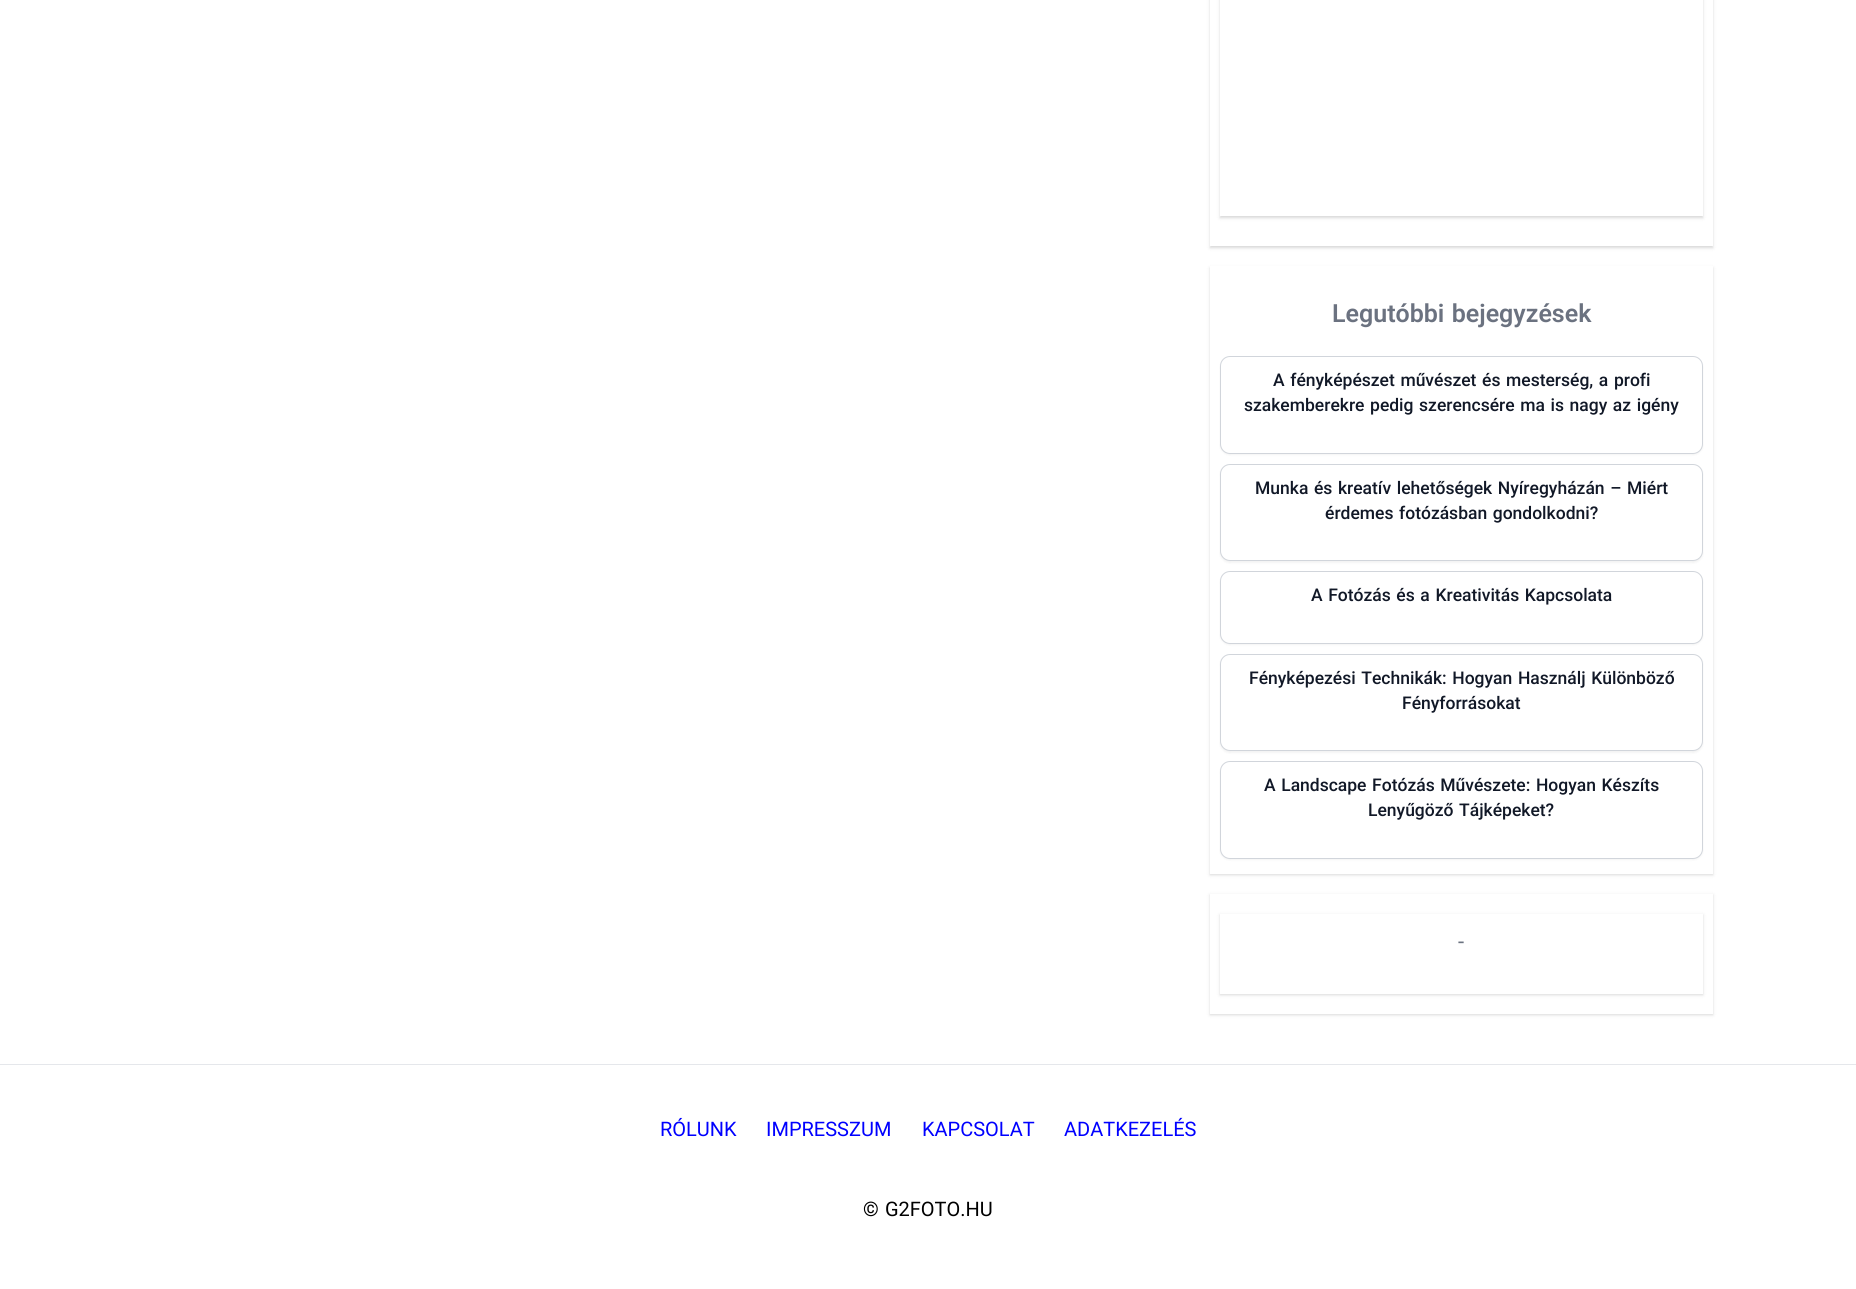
#include <cairo.h>
#include <math.h>
#include <stddef.h>

typedef struct { const char *family; double size; int italic, bold; unsigned color; } style_t;
static cairo_t *ctx;

static void ink(unsigned color) {
    cairo_set_source_rgb(ctx, (color >> 16) / 255.0, (color >> 8 & 255) / 255.0, (color & 255) / 255.0);
}

static void write(double x, double y, const char *s, const style_t *st) {
    cairo_select_font_face(ctx, st->family, st->italic ? CAIRO_FONT_SLANT_ITALIC : CAIRO_FONT_SLANT_NORMAL,
        st->bold ? CAIRO_FONT_WEIGHT_BOLD : CAIRO_FONT_WEIGHT_NORMAL);
    cairo_set_font_size(ctx, st->size);
    ink(st->color);
    cairo_move_to(ctx, x, y);
    cairo_show_text(ctx, s);
}

static void write_spaced(double x, double y, const char *s, double letter, double word) {
    cairo_move_to(ctx, x, y);
    while (*s) {
        char ch[5] = {0};
        int n = 0;
        do ch[n++] = *s++; while ((*s & 0xC0) == 0x80);
        cairo_show_text(ctx, ch);
        cairo_rel_move_to(ctx, letter + word * (*ch == ' '), 0);
    }
}

static void block(double x, double y, double w, double h, unsigned color) {
    ink(color);
    cairo_rectangle(ctx, x, y, w, h);
    cairo_fill(ctx);
}

static void round_path(double x, double y, double w, double h, double r) {
    cairo_new_sub_path(ctx);
    cairo_arc(ctx, x + w - r, y + h - r, r, 0, M_PI / 2);
    cairo_arc(ctx, x + r, y + h - r, r, M_PI / 2, M_PI);
    cairo_arc(ctx, x + r, y + r, r, M_PI, 1.5 * M_PI);
    cairo_arc(ctx, x + w - r, y + r, r, 1.5 * M_PI, 2 * M_PI);
    cairo_close_path(ctx);
}

static void blur_box(double x, double y, double w, double h, double r, double blur, double alpha) {
    cairo_push_group_with_content(ctx, CAIRO_CONTENT_ALPHA);
    cairo_set_operator(ctx, CAIRO_OPERATOR_SOURCE);
    for (int i = 15; i >= -15 && fmin(w, h) + blur * i / 3 > 0; i -= 2) {
        double e = blur * i / 6;
        cairo_set_source_rgba(ctx, 0, 0, 0, alpha * erfc((i - 1) / 8.5) / 2);
        round_path(x - e, y - e, w + 2 * e, h + 2 * e, fmax(0, fmin(r + e + blur * .6, fmin(w, h) / 2 + e)));
        cairo_fill(ctx);
    }
    cairo_pattern_t *soft = cairo_pop_group(ctx);
    cairo_mask(ctx, soft);
    cairo_pattern_destroy(soft);
}

static const style_t s1 = {"Roboto Medium", 17.5, 0, 0, 0x111827};
static const style_t s2 = {"Roboto", 22, 0, 0, 0x6b7280};
static const style_t s3 = {"Roboto", 20, 0, 0, 0x0000ff};

int main(void) {
    cairo_surface_t *surface = cairo_image_surface_create(CAIRO_FORMAT_RGB24, 1856, 1289);
    ctx = cairo_create(surface);
    cairo_font_options_t *options = cairo_font_options_create();
    cairo_font_options_set_hint_metrics(options, CAIRO_HINT_METRICS_OFF);
    cairo_font_options_set_hint_style(options, CAIRO_HINT_STYLE_NONE);
    cairo_set_font_options(ctx, options);
    cairo_set_miter_limit(ctx, 4);
    ink(0xffffff);
    cairo_paint(ctx);
    ink(0x000000);
    blur_box(1210, -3, 503, 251, 0, 1, 0.06);
    blur_box(1210, -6, 503, 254, 0, 2, 0.1);
    block(1210, 0, 503, 246, 0xffffff);
    ink(0x000000);
    blur_box(1220, -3, 483, 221, 0, 1, 0.06);
    blur_box(1220, -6, 483, 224, 0, 2, 0.1);
    block(1220, 0, 483, 216, 0xffffff);
    ink(0x000000);
    blur_box(1210, 268, 503, 607, 0, 1, 0.06);
    blur_box(1210, 268, 503, 607, 0, 2, 0.1);
    block(1210, 266, 503, 608, 0xffffff);
    cairo_select_font_face(ctx, "Roboto SemiBold", CAIRO_FONT_SLANT_NORMAL, CAIRO_FONT_WEIGHT_NORMAL);
    cairo_set_font_size(ctx, 25);
    ink(0x6b7280);
    write_spaced(1332, 322, "Legutóbbi bejegyzések", 0, 1.25);
    ink(0x000000);
    blur_box(1220, 358, 483, 97, 10, 1, 0.05);
    ink(0xffffff);
    round_path(1220.5, 356.5, 482, 97, 9.5);
    cairo_fill_preserve(ctx);
    ink(0xd1d5db);
    cairo_set_line_width(ctx, 1);
    cairo_stroke(ctx);
    cairo_select_font_face(ctx, "Roboto Medium", CAIRO_FONT_SLANT_NORMAL, CAIRO_FONT_WEIGHT_NORMAL);
    cairo_set_font_size(ctx, 17.5);
    ink(0x111827);
    write_spaced(1273, 386, "A fényképészet művészet és mesterség, a profi", 0, 1.25);
    write_spaced(1244, 411, "szakemberekre pedig szerencsére ma is nagy az igény", 0, 1.25);
    ink(0x000000);
    blur_box(1220, 465, 483, 98, 10, 1, 0.05);
    ink(0xffffff);
    round_path(1220.5, 464.5, 482, 96, 9.5);
    cairo_fill_preserve(ctx);
    ink(0xd1d5db);
    cairo_stroke(ctx);
    ink(0x111827);
    write_spaced(1255, 494, "Munka és kreatív lehetőségek Nyíregyházán – Miért", 0, 1.25);
    write_spaced(1325, 519, "érdemes fotózásban gondolkodni?", 0, 1.25);
    ink(0x000000);
    blur_box(1220, 573, 483, 72, 10, 1, 0.05);
    ink(0xffffff);
    round_path(1220.5, 571.5, 482, 72, 9.5);
    cairo_fill_preserve(ctx);
    ink(0xd1d5db);
    cairo_stroke(ctx);
    ink(0x111827);
    write_spaced(1311, 601, "A Fotózás és a Kreativitás Kapcsolata", 0, 1.25);
    ink(0x000000);
    blur_box(1220, 655, 483, 98, 10, 1, 0.05);
    ink(0xffffff);
    round_path(1220.5, 654.5, 482, 96, 9.5);
    cairo_fill_preserve(ctx);
    ink(0xd1d5db);
    cairo_stroke(ctx);
    ink(0x111827);
    write_spaced(1249, 684, "Fényképezési Technikák: Hogyan Használj Különböző", 0, 1.25);
    write(1402, 709, "Fényforrásokat", &s1);
    ink(0x000000);
    blur_box(1220, 763, 483, 97, 10, 1, 0.05);
    ink(0xffffff);
    round_path(1220.5, 761.5, 482, 97, 9.5);
    cairo_fill_preserve(ctx);
    ink(0xd1d5db);
    cairo_stroke(ctx);
    ink(0x111827);
    write_spaced(1264, 791, "A Landscape Fotózás Művészete: Hogyan Készíts", 0, 1.25);
    write_spaced(1368, 816, "Lenyűgöző Tájképeket?", 0, 1.25);
    ink(0x000000);
    blur_box(1210, 895, 503, 120, 0, 1, 0.06);
    blur_box(1210, 895, 503, 120, 0, 2, 0.1);
    block(1210, 894, 503, 120, 0xffffff);
    ink(0x000000);
    blur_box(1220, 915, 483, 80, 0, 1, 0.06);
    blur_box(1220, 915, 483, 80, 0, 2, 0.1);
    block(1220, 914, 483, 80, 0xffffff);
    write(1458, 949, "-", &s2);
    block(0, 1064, 1856, 1, 0xe5e7eb);
    write(660, 1136, "RÓLUNK", &s3);
    write(766, 1136, "IMPRESSZUM", &s3);
    write(922, 1136, "KAPCSOLAT", &s3);
    write(1064, 1136, "ADATKEZELÉS", &s3);
    ink(0x000000);
    write_spaced(863, 1216, "© G2FOTO.HU", 0, 1.25);
    cairo_surface_write_to_png(surface, "screenshot.png");
    cairo_font_options_destroy(options);
    cairo_destroy(ctx);
    cairo_surface_destroy(surface);
    return 0;
}
